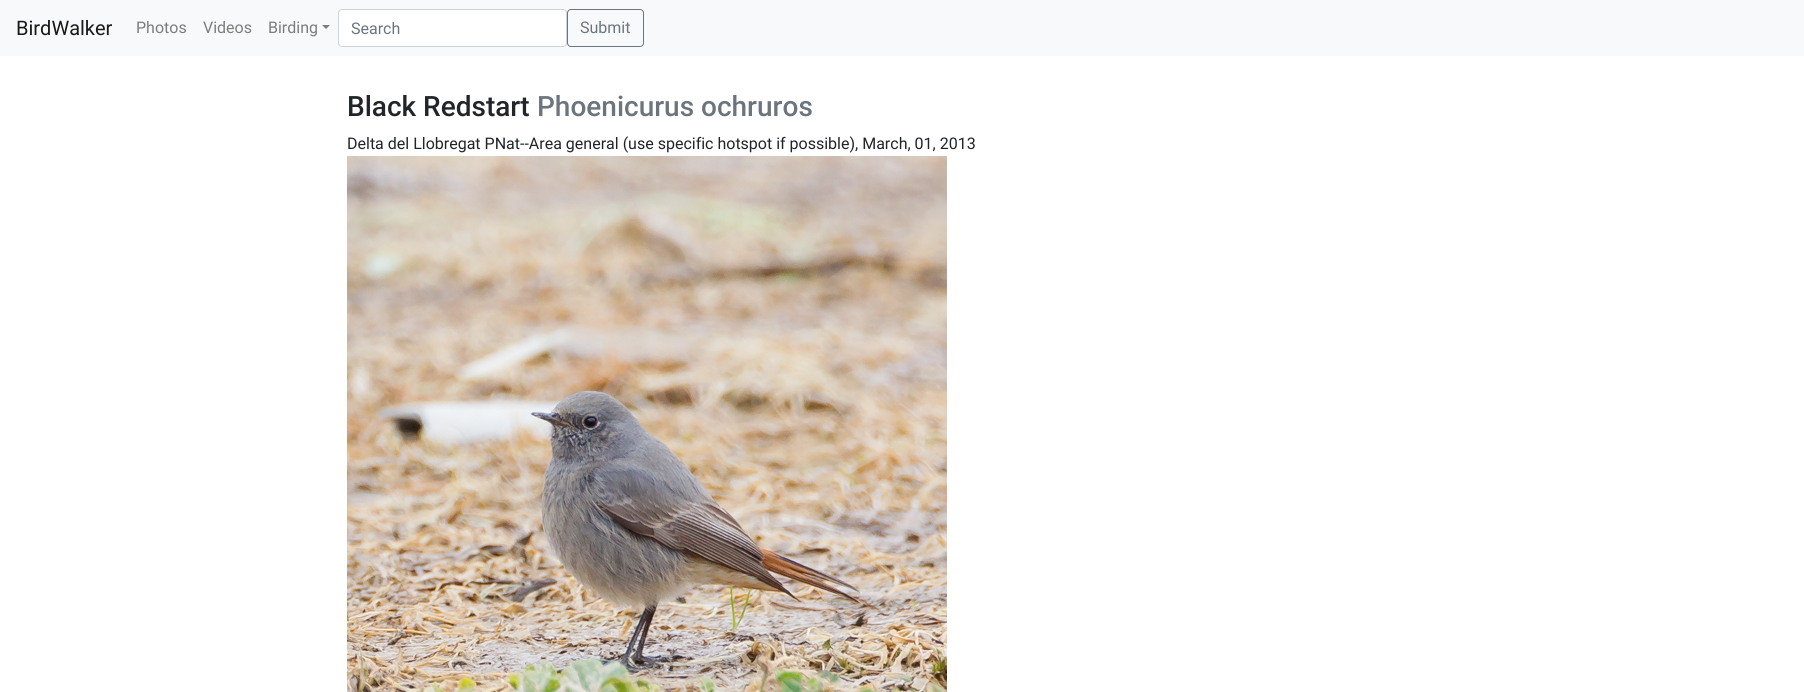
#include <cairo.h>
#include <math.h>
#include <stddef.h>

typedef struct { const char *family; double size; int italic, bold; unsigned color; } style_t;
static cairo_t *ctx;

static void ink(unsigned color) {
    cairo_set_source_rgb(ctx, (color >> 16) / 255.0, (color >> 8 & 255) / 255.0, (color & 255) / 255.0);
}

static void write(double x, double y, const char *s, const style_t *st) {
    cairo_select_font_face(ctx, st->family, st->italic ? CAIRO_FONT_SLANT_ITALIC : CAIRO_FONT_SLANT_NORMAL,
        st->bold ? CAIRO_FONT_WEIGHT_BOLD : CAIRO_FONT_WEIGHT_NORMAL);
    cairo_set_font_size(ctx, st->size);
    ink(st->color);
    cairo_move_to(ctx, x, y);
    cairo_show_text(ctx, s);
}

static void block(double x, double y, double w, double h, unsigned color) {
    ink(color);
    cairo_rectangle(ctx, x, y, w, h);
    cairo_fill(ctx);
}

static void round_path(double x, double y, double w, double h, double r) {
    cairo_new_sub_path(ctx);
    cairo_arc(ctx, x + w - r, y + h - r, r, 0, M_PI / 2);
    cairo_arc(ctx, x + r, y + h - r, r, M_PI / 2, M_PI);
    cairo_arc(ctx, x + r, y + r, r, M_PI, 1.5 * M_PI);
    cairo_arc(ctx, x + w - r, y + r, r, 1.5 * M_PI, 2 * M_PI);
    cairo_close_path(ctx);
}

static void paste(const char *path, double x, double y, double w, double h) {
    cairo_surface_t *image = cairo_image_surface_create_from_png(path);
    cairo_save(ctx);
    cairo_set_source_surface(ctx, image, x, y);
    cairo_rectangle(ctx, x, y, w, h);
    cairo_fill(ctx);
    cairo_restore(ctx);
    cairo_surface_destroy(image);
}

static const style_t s1 = {"Roboto", 20, 0, 0, 0x191919};
static const style_t s2 = {"Roboto", 16, 0, 0, 0x7c7d7d};
static const style_t s3 = {"Roboto", 16, 0, 0, 0x6c757d};
static const style_t s4 = {"Roboto Medium", 28, 0, 0, 0x212529};
static const style_t s5 = {"Roboto Medium", 28, 0, 0, 0x6c757d};
static const style_t s6 = {"Roboto", 16, 0, 0, 0x212529};

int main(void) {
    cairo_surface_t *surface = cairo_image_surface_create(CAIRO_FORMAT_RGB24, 1804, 692);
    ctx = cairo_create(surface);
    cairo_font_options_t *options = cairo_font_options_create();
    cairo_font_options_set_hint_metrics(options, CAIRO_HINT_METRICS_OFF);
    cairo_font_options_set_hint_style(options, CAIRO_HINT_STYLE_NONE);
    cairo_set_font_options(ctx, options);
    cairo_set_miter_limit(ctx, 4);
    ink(0xffffff);
    cairo_paint(ctx);
    block(0, 0, 1804, 56, 0xf8f9fa);
    write(16, 35, "BirdWalker", &s1);
    write(136, 33, "Photos", &s2);
    write(203, 33, "Videos", &s2);
    write(268, 33, "Birding", &s2);
    cairo_new_path(ctx);
    cairo_move_to(ctx, 322, 25);
    cairo_line_to(ctx, 330, 25);
    cairo_line_to(ctx, 326, 29);
    cairo_close_path(ctx);
    cairo_fill(ctx);
    ink(0xffffff);
    round_path(338.5, 9.5, 228, 37, 3.5);
    cairo_fill_preserve(ctx);
    ink(0xced4da);
    cairo_set_line_width(ctx, 1);
    cairo_stroke(ctx);
    write(351, 34, "Search", &s3);
    round_path(567.5, 9.5, 76, 37, 3.5);
    cairo_stroke(ctx);
    write(580, 33, "Submit", &s3);
    write(347, 116, "Black Redstart", &s4);
    write(537, 116, "Phoenicurus ochruros", &s5);
    write(347, 149, "Delta del Llobregat PNat--Area general (use specific hotspot if possible), March, 01, 2013", &s6);
    paste("pic1.png", 347, 156, 600, 536);
    cairo_surface_write_to_png(surface, "screenshot.png");
    cairo_font_options_destroy(options);
    cairo_destroy(ctx);
    cairo_surface_destroy(surface);
    return 0;
}
